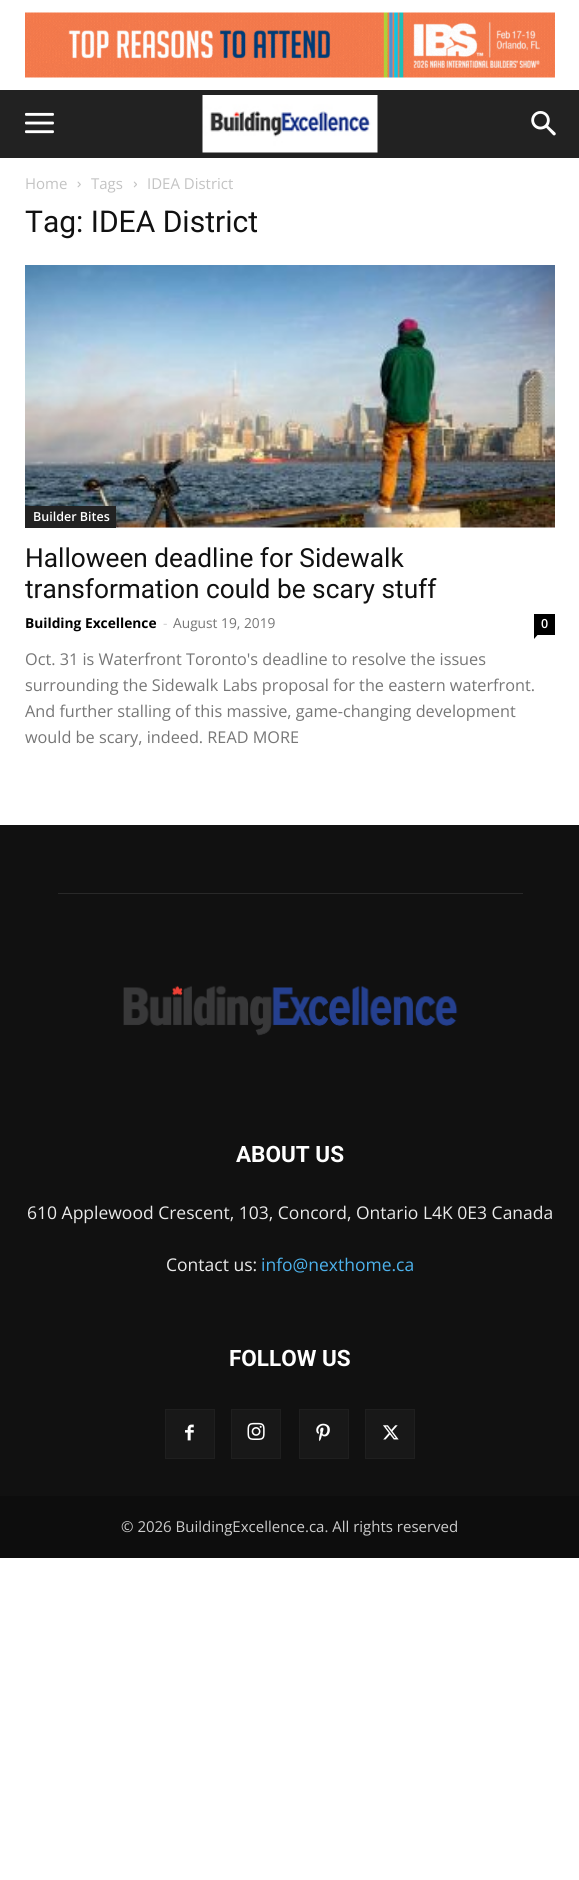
#include <cairo.h>
#include <math.h>
#include <stddef.h>

typedef struct { const char *family; double size; int italic, bold; unsigned color; } style_t;
static cairo_t *ctx;

static void ink(unsigned color) {
    cairo_set_source_rgb(ctx, (color >> 16) / 255.0, (color >> 8 & 255) / 255.0, (color & 255) / 255.0);
}

static void write(double x, double y, const char *s, const style_t *st) {
    cairo_select_font_face(ctx, st->family, st->italic ? CAIRO_FONT_SLANT_ITALIC : CAIRO_FONT_SLANT_NORMAL,
        st->bold ? CAIRO_FONT_WEIGHT_BOLD : CAIRO_FONT_WEIGHT_NORMAL);
    cairo_set_font_size(ctx, st->size);
    ink(st->color);
    cairo_move_to(ctx, x, y);
    cairo_show_text(ctx, s);
}

static void block(double x, double y, double w, double h, unsigned color) {
    ink(color);
    cairo_rectangle(ctx, x, y, w, h);
    cairo_fill(ctx);
}

static void paste(const char *path, double x, double y, double w, double h) {
    cairo_surface_t *image = cairo_image_surface_create_from_png(path);
    cairo_save(ctx);
    cairo_set_source_surface(ctx, image, x, y);
    cairo_rectangle(ctx, x, y, w, h);
    cairo_fill(ctx);
    cairo_restore(ctx);
    cairo_surface_destroy(image);
}

static const style_t s1 = {"Open Sans", 15, 0, 0, 0xc3c3c3};
static const style_t s2 = {"Roboto", 30, 0, 0, 0x111111};
static const style_t s3 = {"Open Sans SemiBold", 12.5, 0, 0, 0xffffff};
static const style_t s4 = {"Roboto", 26.25, 0, 0, 0x111111};
static const style_t s5 = {"Open Sans", 13.75, 0, 1, 0x000000};
static const style_t s6 = {"Open Sans", 13.75, 0, 0, 0xcccccc};
static const style_t s7 = {"Open Sans", 13.75, 0, 0, 0x767676};
static const style_t s8 = {"Open Sans", 16.25, 0, 0, 0x767676};
static const style_t s9 = {"Roboto", 22.5, 0, 1, 0xffffff};
static const style_t s10 = {"Open Sans", 17.5, 0, 0, 0xeaeaea};
static const style_t s11 = {"Open Sans", 17.5, 0, 0, 0x4db2ec};
static const style_t s12 = {"Open Sans", 15, 0, 0, 0xcccccc};

int main(void) {
    cairo_surface_t *surface = cairo_image_surface_create(CAIRO_FORMAT_RGB24, 579, 1880);
    ctx = cairo_create(surface);
    cairo_font_options_t *options = cairo_font_options_create();
    cairo_font_options_set_hint_metrics(options, CAIRO_HINT_METRICS_OFF);
    cairo_font_options_set_hint_style(options, CAIRO_HINT_STYLE_NONE);
    cairo_set_font_options(ctx, options);
    cairo_set_miter_limit(ctx, 4);
    ink(0xffffff);
    cairo_paint(ctx);
    paste("pic1.png", 25, 12, 530, 66);
    block(0, 90, 579, 68, 0x222222);
    paste("pic2.png", 25, 112, 29, 22);
    paste("pic3.png", 202, 95, 176, 58);
    paste("pic4.png", 531, 111, 25, 25);
    write(25, 189, "Home", &s1);
    paste("pic5.png", 77, 181, 4, 7);
    write(91, 189, "Tags", &s1);
    paste("pic6.png", 133, 181, 4, 7);
    write(147, 189, "IDEA District", &s1);
    write(25, 232, "Tag: IDEA District", &s2);
    paste("pic7.png", 25, 265, 530, 263);
    block(25, 506, 91, 22, 0x222222);
    write(33, 521, "Builder Bites", &s3);
    write(25, 567, "Halloween deadline for Sidewalk", &s4);
    write(25, 598, "transformation could be scary stuff", &s4);
    write(25, 628, "Building Excellence", &s5);
    write(163, 628, "-", &s6);
    write(173, 628, "August 19, 2019", &s7);
    block(534, 614, 21, 21, 0x000000);
    write(541, 628, "0", &s3);
    ink(0x000000);
    cairo_new_path(ctx);
    cairo_move_to(ctx, 534, 635);
    cairo_line_to(ctx, 537.5, 635);
    cairo_line_to(ctx, 534, 639);
    cairo_close_path(ctx);
    cairo_fill(ctx);
    write(25, 665, "Oct. 31 is Waterfront Toronto's deadline to resolve the issues", &s8);
    write(25, 691, "surrounding the Sidewalk Labs proposal for the eastern waterfront.", &s8);
    write(25, 717, "And further stalling of this massive, game-changing development", &s8);
    write(25, 743, "would be scary, indeed. READ MORE", &s8);
    block(0, 825, 579, 671, 0x111111);
    block(58, 893, 465, 1, 0x292929);
    paste("pic8.png", 123, 985, 335, 51);
    write(236, 1162, "ABOUT US", &s9);
    write(27, 1219, "610 Applewood Crescent, 103, Concord, Ontario L4K 0E3 Canada", &s10);
    write(166, 1271, "Contact us:", &s10);
    write(261, 1271, "info@nexthome.ca", &s11);
    write(229, 1366, "FOLLOW US", &s9);
    block(166, 1410, 48, 48, 0x181818);
    paste("pic9.png", 185, 1424, 9, 17);
    cairo_rectangle(ctx, 165.5, 1409.5, 49, 49);
    ink(0x1f1f1f);
    cairo_set_line_width(ctx, 1);
    cairo_stroke(ctx);
    block(232, 1410, 48, 48, 0x181818);
    paste("pic10.png", 247, 1422, 18, 18);
    cairo_rectangle(ctx, 231.5, 1409.5, 49, 49);
    ink(0x1f1f1f);
    cairo_stroke(ctx);
    block(300, 1410, 48, 48, 0x181818);
    paste("pic11.png", 316, 1423, 14, 19);
    cairo_rectangle(ctx, 299.5, 1409.5, 49, 49);
    ink(0x1f1f1f);
    cairo_stroke(ctx);
    block(366, 1410, 48, 48, 0x181818);
    paste("pic12.png", 383, 1425, 16, 15);
    cairo_rectangle(ctx, 365.5, 1409.5, 49, 49);
    ink(0x1f1f1f);
    cairo_stroke(ctx);
    block(0, 1496, 579, 62, 0x0d0d0d);
    write(121, 1532, "© 2026 BuildingExcellence.ca. All rights reserved", &s12);
    cairo_surface_write_to_png(surface, "screenshot.png");
    cairo_font_options_destroy(options);
    cairo_destroy(ctx);
    cairo_surface_destroy(surface);
    return 0;
}
